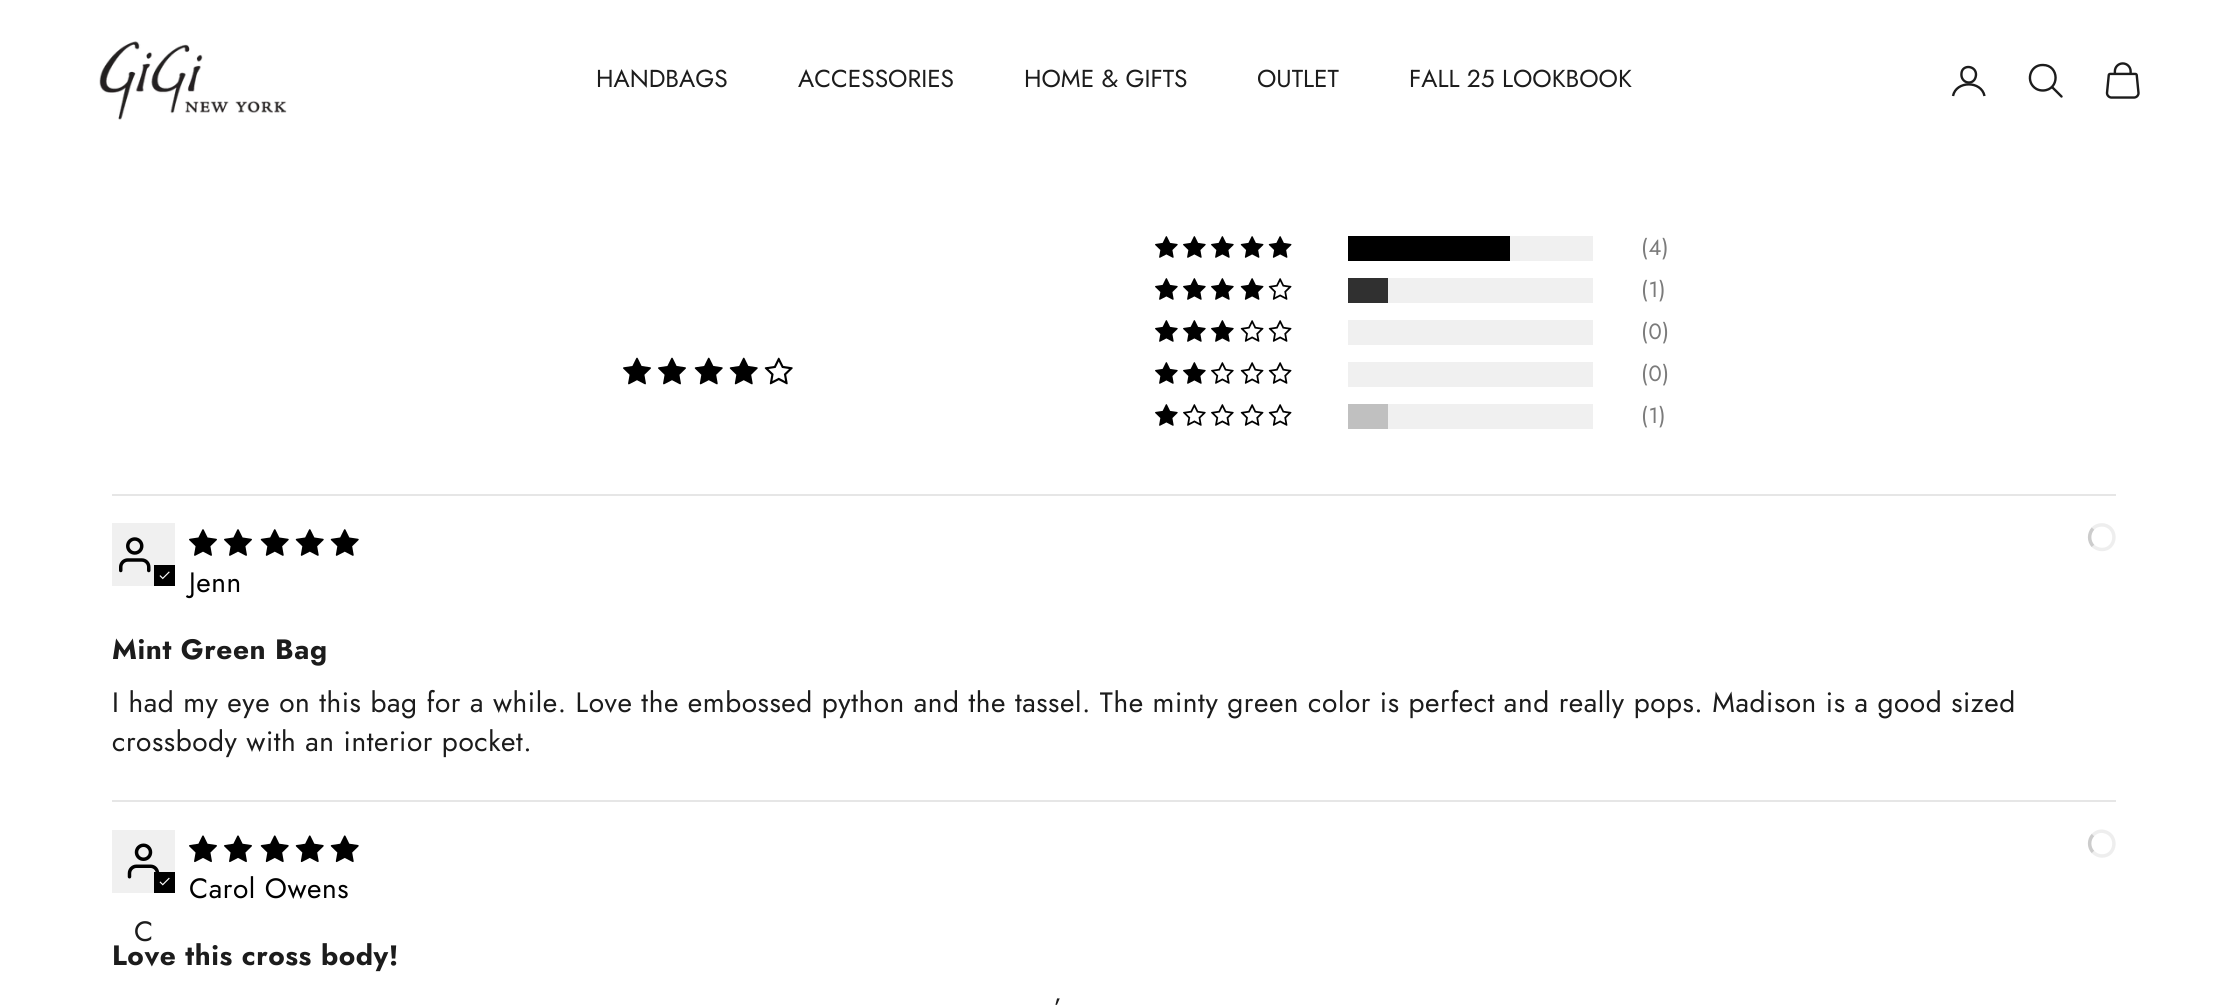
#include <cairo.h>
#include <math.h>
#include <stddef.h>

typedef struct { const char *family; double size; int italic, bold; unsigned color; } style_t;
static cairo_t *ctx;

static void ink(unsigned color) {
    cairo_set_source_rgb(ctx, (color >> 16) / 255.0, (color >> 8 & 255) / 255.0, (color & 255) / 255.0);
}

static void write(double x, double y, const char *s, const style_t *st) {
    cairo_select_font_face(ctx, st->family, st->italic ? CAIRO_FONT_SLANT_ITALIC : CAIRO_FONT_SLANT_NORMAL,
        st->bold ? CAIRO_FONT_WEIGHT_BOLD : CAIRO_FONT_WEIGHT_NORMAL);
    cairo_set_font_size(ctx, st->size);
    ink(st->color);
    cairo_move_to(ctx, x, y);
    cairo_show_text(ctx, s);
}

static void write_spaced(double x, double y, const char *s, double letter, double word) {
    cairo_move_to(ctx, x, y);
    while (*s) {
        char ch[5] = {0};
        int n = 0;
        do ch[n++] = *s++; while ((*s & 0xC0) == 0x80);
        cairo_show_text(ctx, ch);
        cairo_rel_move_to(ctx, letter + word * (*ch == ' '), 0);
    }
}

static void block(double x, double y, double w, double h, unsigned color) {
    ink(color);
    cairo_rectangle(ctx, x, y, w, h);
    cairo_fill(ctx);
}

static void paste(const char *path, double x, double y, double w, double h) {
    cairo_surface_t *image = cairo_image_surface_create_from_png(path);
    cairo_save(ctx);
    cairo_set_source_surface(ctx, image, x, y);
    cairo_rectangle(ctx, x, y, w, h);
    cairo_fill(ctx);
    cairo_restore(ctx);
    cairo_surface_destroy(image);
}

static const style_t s1 = {"Jost", 24.5, 0, 0, 0x1c1c1c};

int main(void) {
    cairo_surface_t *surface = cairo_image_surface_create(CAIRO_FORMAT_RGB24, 2227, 1006);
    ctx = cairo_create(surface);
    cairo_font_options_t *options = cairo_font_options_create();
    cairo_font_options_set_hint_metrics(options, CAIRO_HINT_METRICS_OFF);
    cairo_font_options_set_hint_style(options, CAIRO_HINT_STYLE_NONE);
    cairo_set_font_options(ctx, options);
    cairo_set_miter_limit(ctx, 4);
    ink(0xffffff);
    cairo_paint(ctx);
    paste("pic1.png", 99, 41, 188, 79);
    write(596, 87, "HANDBAGS", &s1);
    write(798, 87, "ACCESSORIES", &s1);
    write(1024, 87, "HOME & GIFTS", &s1);
    write(1257, 87, "OUTLET", &s1);
    write(1409, 87, "FALL 25 LOOKBOOK", &s1);
    cairo_new_path(ctx);
    cairo_move_to(ctx, 1976, 75);
    cairo_curve_to(ctx, 1975, 86.5, 1960, 84, 1961.5, 73);
    cairo_curve_to(ctx, 1962.5, 64, 1976.5, 65.5, 1976, 75);
    cairo_close_path(ctx);
    cairo_set_line_width(ctx, 2.4);
    cairo_set_line_cap(ctx, CAIRO_LINE_CAP_ROUND);
    cairo_set_line_join(ctx, CAIRO_LINE_JOIN_ROUND);
    cairo_stroke(ctx);
    cairo_new_path(ctx);
    cairo_move_to(ctx, 1953, 96);
    cairo_curve_to(ctx, 1956, 80.5, 1981.5, 80.5, 1984.5, 96);
    cairo_set_line_cap(ctx, CAIRO_LINE_CAP_BUTT);
    cairo_set_line_join(ctx, CAIRO_LINE_JOIN_MITER);
    cairo_stroke(ctx);
    cairo_new_path(ctx);
    cairo_move_to(ctx, 2043, 65);
    cairo_curve_to(ctx, 2029.5, 64.5, 2025, 82.5, 2036.5, 89);
    cairo_curve_to(ctx, 2038.5, 90, 2040.5, 90.5, 2043, 90.5);
    cairo_curve_to(ctx, 2060, 90, 2059.5, 65, 2043, 65);
    cairo_close_path(ctx);
    cairo_stroke(ctx);
    cairo_new_path(ctx);
    cairo_move_to(ctx, 2052.5, 87.5);
    cairo_line_to(ctx, 2061.5, 96.5);
    cairo_set_line_cap(ctx, CAIRO_LINE_CAP_ROUND);
    cairo_stroke(ctx);
    paste("pic2.png", 2105, 62, 35, 37);
    paste("pic3.png", 623, 357, 28, 28);
    paste("pic3.png", 658, 357, 28, 28);
    paste("pic4.png", 694, 357, 29, 28);
    paste("pic4.png", 729, 357, 29, 28);
    paste("pic5.png", 764, 357, 29, 28);
    paste("pic6.png", 1155, 236, 23, 22);
    paste("pic6.png", 1183, 236, 23, 22);
    paste("pic6.png", 1211, 236, 23, 22);
    paste("pic7.png", 1240, 236, 24, 22);
    paste("pic7.png", 1268, 236, 24, 22);
    block(1510, 236, 83, 25, 0xf0f0f0);
    block(1348, 236, 162, 25, 0x000000);
    cairo_set_font_size(ctx, 22);
    ink(0x7b7b7b);
    write_spaced(1641, 255, "(4)", 0.56, 0);
    paste("pic6.png", 1155, 278, 23, 22);
    paste("pic6.png", 1183, 278, 23, 22);
    paste("pic6.png", 1211, 278, 23, 22);
    paste("pic7.png", 1240, 278, 24, 22);
    paste("pic8.png", 1268, 278, 24, 22);
    block(1388, 278, 205, 25, 0xf0f0f0);
    block(1348, 278, 40, 25, 0x303030);
    ink(0x7b7b7b);
    write_spaced(1641, 297, "(1)", 0.56, 0);
    paste("pic6.png", 1155, 320, 23, 22);
    paste("pic6.png", 1183, 320, 23, 22);
    paste("pic6.png", 1211, 320, 23, 22);
    paste("pic8.png", 1240, 320, 24, 22);
    paste("pic8.png", 1268, 320, 24, 22);
    block(1348, 320, 245, 25, 0xf0f0f0);
    ink(0x7b7b7b);
    write_spaced(1641, 339, "(0)", 0.56, 0);
    paste("pic6.png", 1155, 362, 23, 22);
    paste("pic6.png", 1183, 362, 23, 22);
    paste("pic9.png", 1211, 362, 23, 22);
    paste("pic8.png", 1240, 362, 24, 22);
    paste("pic8.png", 1268, 362, 24, 22);
    block(1348, 362, 245, 25, 0xf0f0f0);
    ink(0x7b7b7b);
    write_spaced(1641, 381, "(0)", 0.56, 0);
    paste("pic6.png", 1155, 404, 23, 22);
    paste("pic9.png", 1183, 404, 23, 22);
    paste("pic9.png", 1211, 404, 23, 22);
    paste("pic8.png", 1240, 404, 24, 22);
    paste("pic8.png", 1268, 404, 24, 22);
    block(1388, 404, 205, 25, 0xf0f0f0);
    block(1348, 404, 40, 25, 0xc0c0c0);
    ink(0x7b7b7b);
    write_spaced(1641, 423, "(1)", 0.56, 0);
    block(112, 494, 2004, 2, 0xe6e6e6);
    block(112, 523, 63, 63, 0xf0f0f0);
    paste("pic10.png", 119, 537, 32, 36);
    block(154, 565, 21, 21, 0x000000);
    paste("pic11.png", 159, 571, 11, 9);
    paste("pic12.png", 189, 529, 28, 27);
    paste("pic12.png", 224, 529, 28, 27);
    paste("pic13.png", 260, 529, 29, 27);
    paste("pic13.png", 295, 529, 29, 27);
    paste("pic13.png", 330, 529, 29, 27);
    cairo_new_path(ctx);
    cairo_move_to(ctx, 2093, 528.5);
    cairo_curve_to(ctx, 2096, 525.5, 2100, 524.5, 2104, 525);
    cairo_curve_to(ctx, 2118.5, 528, 2116.5, 549.5, 2102, 549.5);
    cairo_curve_to(ctx, 2098.5, 549.5, 2095.5, 548, 2093, 546);
    ink(0xeeeeee);
    cairo_set_line_width(ctx, 3.5);
    cairo_set_line_cap(ctx, CAIRO_LINE_CAP_BUTT);
    cairo_stroke(ctx);
    cairo_new_path(ctx);
    cairo_move_to(ctx, 2093, 546);
    cairo_curve_to(ctx, 2088.5, 541, 2088.5, 533.5, 2093, 528.5);
    ink(0xcccccc);
    cairo_stroke(ctx);
    cairo_set_font_size(ctx, 28);
    ink(0x000000);
    write_spaced(189, 592, "Jenn", 0.56, 0);
    cairo_select_font_face(ctx, "Jost", CAIRO_FONT_SLANT_NORMAL, CAIRO_FONT_WEIGHT_BOLD);
    ink(0x1c1c1c);
    write_spaced(112, 659, "Mint Green Bag", 0.56, 0);
    cairo_select_font_face(ctx, "Jost", CAIRO_FONT_SLANT_NORMAL, CAIRO_FONT_WEIGHT_NORMAL);
    write_spaced(112, 712, "I had my eye on this bag for a while. Love the embossed python and the tassel. The minty green color is perfect and really pops. Madison is a good sized", 0.56, 0);
    write_spaced(112, 751, "crossbody with an interior pocket.", 0.56, 0);
    block(112, 800, 2004, 2, 0xe6e6e6);
    paste("pic14.png", 189, 835, 28, 28);
    paste("pic14.png", 224, 835, 28, 28);
    paste("pic15.png", 260, 835, 29, 28);
    paste("pic15.png", 295, 835, 29, 28);
    paste("pic15.png", 330, 835, 29, 28);
    cairo_new_path(ctx);
    cairo_move_to(ctx, 2093, 835);
    cairo_curve_to(ctx, 2096, 832, 2100, 830.5, 2104, 831.5);
    cairo_curve_to(ctx, 2118.5, 834.5, 2116.5, 856, 2102, 856);
    cairo_curve_to(ctx, 2098.5, 856, 2095.5, 854.5, 2093, 852);
    ink(0xeeeeee);
    cairo_stroke(ctx);
    cairo_new_path(ctx);
    cairo_move_to(ctx, 2093, 852);
    cairo_curve_to(ctx, 2088.5, 847.5, 2088.5, 839.5, 2093, 835);
    ink(0xcccccc);
    cairo_stroke(ctx);
    ink(0x000000);
    write_spaced(189, 898, "Carol Owens", 0.56, 0);
    block(112, 830, 63, 63, 0xf0f0f0);
    paste("pic16.png", 127, 843, 33, 36);
    block(154, 872, 21, 21, 0x000000);
    paste("pic17.png", 159, 877, 11, 9);
    ink(0x1c1c1c);
    write_spaced(134, 941, "C", 0.56, 0);
    cairo_select_font_face(ctx, "Jost", CAIRO_FONT_SLANT_NORMAL, CAIRO_FONT_WEIGHT_BOLD);
    write_spaced(112, 965, "Love this cross body!", 0.56, 0);
    cairo_select_font_face(ctx, "Jost", CAIRO_FONT_SLANT_NORMAL, CAIRO_FONT_WEIGHT_NORMAL);
    write_spaced(1054, 1018, "’", 0.56, 0);
    cairo_surface_write_to_png(surface, "screenshot.png");
    cairo_font_options_destroy(options);
    cairo_destroy(ctx);
    cairo_surface_destroy(surface);
    return 0;
}
